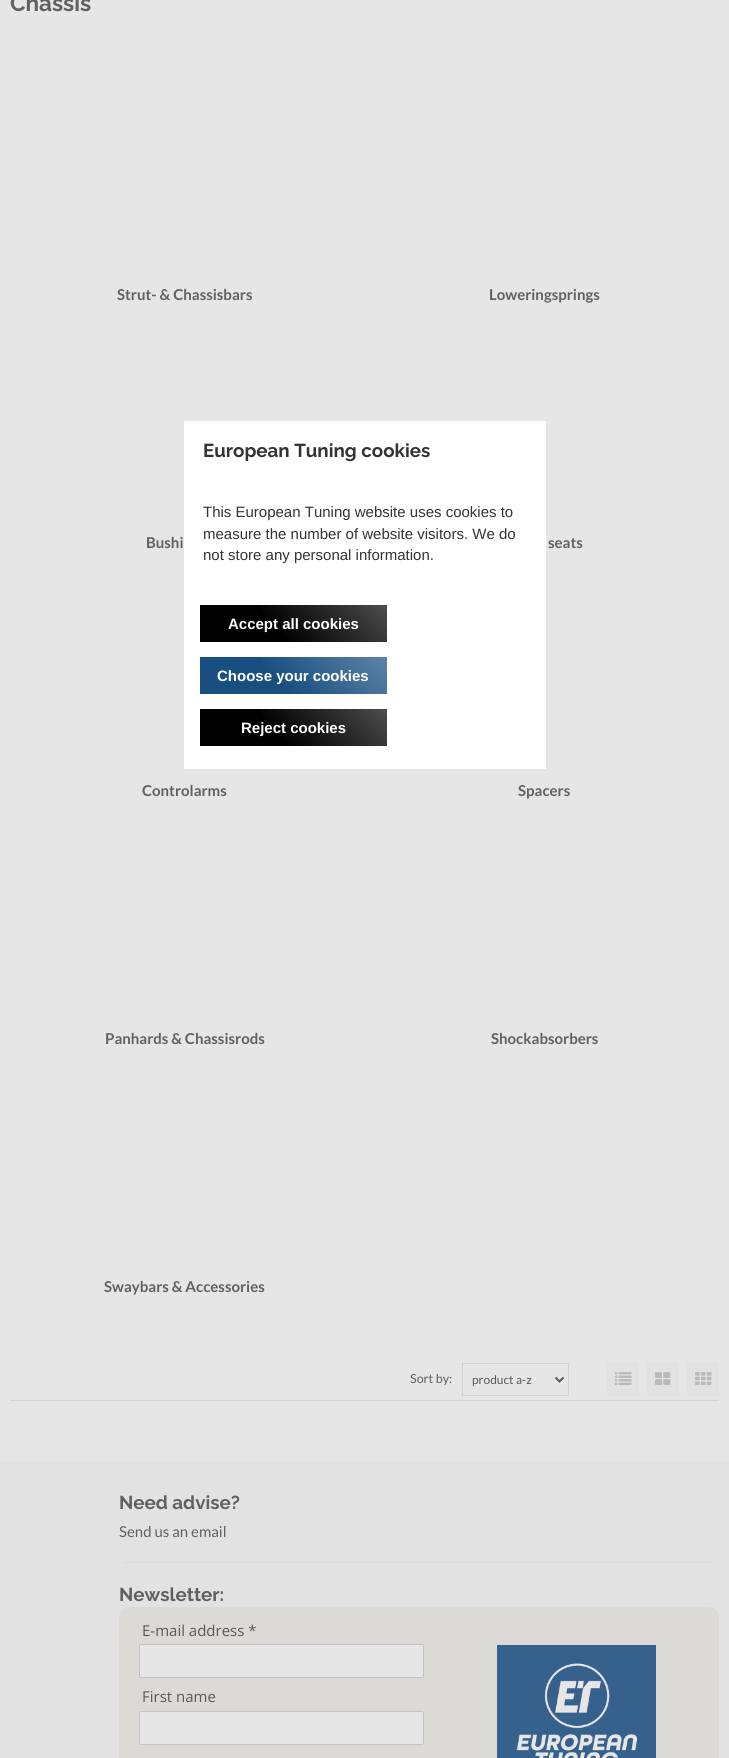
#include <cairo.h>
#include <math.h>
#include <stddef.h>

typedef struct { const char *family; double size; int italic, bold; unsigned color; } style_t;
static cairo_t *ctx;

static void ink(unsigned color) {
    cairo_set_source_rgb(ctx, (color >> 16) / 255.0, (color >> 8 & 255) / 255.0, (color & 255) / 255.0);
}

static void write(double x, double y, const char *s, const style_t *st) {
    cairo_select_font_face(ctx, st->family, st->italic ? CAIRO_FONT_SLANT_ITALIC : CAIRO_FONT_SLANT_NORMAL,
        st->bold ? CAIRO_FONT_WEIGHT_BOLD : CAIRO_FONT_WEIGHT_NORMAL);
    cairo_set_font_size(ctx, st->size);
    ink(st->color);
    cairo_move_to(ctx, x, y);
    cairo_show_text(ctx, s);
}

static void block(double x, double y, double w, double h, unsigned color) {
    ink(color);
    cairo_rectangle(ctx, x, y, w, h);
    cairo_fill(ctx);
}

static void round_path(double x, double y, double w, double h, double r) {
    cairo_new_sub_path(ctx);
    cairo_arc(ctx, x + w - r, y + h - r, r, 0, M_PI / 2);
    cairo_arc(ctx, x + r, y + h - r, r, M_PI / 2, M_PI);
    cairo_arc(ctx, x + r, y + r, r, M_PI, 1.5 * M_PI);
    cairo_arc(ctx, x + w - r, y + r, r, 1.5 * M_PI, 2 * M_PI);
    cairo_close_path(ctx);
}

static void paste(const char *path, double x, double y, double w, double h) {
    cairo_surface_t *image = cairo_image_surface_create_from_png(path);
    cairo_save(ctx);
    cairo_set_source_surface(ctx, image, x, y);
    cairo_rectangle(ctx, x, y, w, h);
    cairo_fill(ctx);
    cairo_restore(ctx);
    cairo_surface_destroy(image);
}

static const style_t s1 = {"Raleway", 22.5, 0, 1, 0x606060};
static const style_t s2 = {"Lato", 15, 0, 1, 0x606060};
static const style_t s3 = {"Lato", 12.5, 0, 0, 0x606060};
static const style_t s4 = {"Lato", 12, 0, 0, 0x575757};
static const style_t s5 = {"Raleway", 18.75, 0, 1, 0x606060};
static const style_t s6 = {"Lato", 15, 0, 0, 0x606060};
static const style_t s7 = {"Open Sans", 15, 0, 0, 0x575757};
static const style_t s8 = {"Raleway", 18.75, 0, 1, 0x333333};
static const style_t s9 = {"Liberation Sans", 15, 0, 0, 0x333333};
static const style_t s10 = {"Liberation Sans", 15, 0, 1, 0xffffff};

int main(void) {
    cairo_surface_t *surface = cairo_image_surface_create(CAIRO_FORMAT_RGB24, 729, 1758);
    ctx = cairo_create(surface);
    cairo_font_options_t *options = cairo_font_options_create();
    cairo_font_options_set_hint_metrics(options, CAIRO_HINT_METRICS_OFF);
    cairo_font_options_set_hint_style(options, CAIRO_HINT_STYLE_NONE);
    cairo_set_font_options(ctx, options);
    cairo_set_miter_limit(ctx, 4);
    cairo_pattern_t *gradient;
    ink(0xe6e6e6);
    cairo_paint(ctx);
    write(10, 11, "Chassis", &s1);
    write(117, 300, "Strut- & Chassisbars", &s2);
    write(489, 300, "Loweringsprings", &s2);
    write(146, 548, "Bushi", &s2);
    write(548, 548, "seats", &s2);
    write(142, 796, "Controlarms", &s2);
    write(518, 796, "Spacers", &s2);
    write(105, 1044, "Panhards & Chassisrods", &s2);
    write(491, 1044, "Shockabsorbers", &s2);
    write(104, 1292, "Swaybars & Accessories", &s2);
    block(10, 1400, 709, 1, 0xd2d2d2);
    write(410, 1383, "Sort by:", &s3);
    cairo_rectangle(ctx, 462.5, 1363.5, 106, 32);
    ink(0xd2d2d2);
    cairo_set_line_width(ctx, 1);
    cairo_stroke(ctx);
    cairo_new_path(ctx);
    cairo_move_to(ctx, 555.5, 1377.5);
    cairo_line_to(ctx, 559.5, 1381.5);
    cairo_line_to(ctx, 563.5, 1377.5);
    ink(0x575757);
    cairo_set_line_width(ctx, 2);
    cairo_stroke(ctx);
    write(472, 1384, "product a-z", &s4);
    block(607, 1362, 32, 34, 0xe2e2e2);
    paste("pic1.png", 615, 1372, 17, 13);
    block(647, 1362, 32, 34, 0xe2e2e2);
    paste("pic2.png", 655, 1372, 16, 13);
    block(687, 1362, 32, 34, 0xe2e2e2);
    paste("pic3.png", 695, 1372, 17, 13);
    block(0, 1461, 729, 297, 0xe2e2e2);
    write(119, 1509, "Need advise?", &s5);
    write(119, 1537, "Send us an email", &s6);
    block(125, 1562, 588, 1, 0xdadada);
    write(119, 1601, "Newsletter:", &s5);
    ink(0xdcdad6);
    cairo_new_path(ctx);
    cairo_move_to(ctx, 129, 1607);
    cairo_line_to(ctx, 434, 1607);
    cairo_line_to(ctx, 434, 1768);
    cairo_line_to(ctx, 129, 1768);
    cairo_curve_to(ctx, 123.5, 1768, 119, 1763.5, 119, 1758);
    cairo_line_to(ctx, 119, 1617);
    cairo_curve_to(ctx, 119, 1611.5, 123.5, 1607, 129, 1607);
    cairo_close_path(ctx);
    cairo_fill(ctx);
    write(142, 1636, "E-mail address *", &s7);
    ink(0xe6e6e6);
    round_path(139.5, 1644.5, 284, 33, 1.5);
    cairo_fill_preserve(ctx);
    ink(0xc2c2c2);
    cairo_set_line_width(ctx, 1);
    cairo_stroke(ctx);
    write(142, 1702, "First name", &s7);
    ink(0xe6e6e6);
    round_path(139.5, 1711.5, 284, 33, 1.5);
    cairo_fill_preserve(ctx);
    ink(0xc2c2c2);
    cairo_stroke(ctx);
    ink(0xdcdad6);
    cairo_new_path(ctx);
    cairo_move_to(ctx, 434, 1607);
    cairo_line_to(ctx, 709, 1607);
    cairo_curve_to(ctx, 714.5, 1607, 719, 1611.5, 719, 1617);
    cairo_line_to(ctx, 719, 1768);
    cairo_line_to(ctx, 434, 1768);
    cairo_close_path(ctx);
    cairo_fill(ctx);
    paste("pic4.png", 497, 1645, 159, 113);
    block(184, 421, 362, 348, 0xffffff);
    write(203, 457, "European Tuning cookies", &s8);
    write(203, 517, "This European Tuning website uses cookies to", &s9);
    write(203, 539, "measure the number of website visitors. We do", &s9);
    write(203, 560, "not store any personal information.", &s9);
    block(200, 605, 187, 37, 0x000000);
    gradient = cairo_pattern_create_linear(349, 568, 237, 680);
    cairo_pattern_add_color_stop_rgba(gradient, 0, 1, 1, 1, 0.3);
    cairo_pattern_add_color_stop_rgba(gradient, 0.6, 1, 1, 1, 0);
    cairo_set_source(ctx, gradient);
    cairo_pattern_destroy(gradient);
    cairo_rectangle(ctx, 262, 605, 125, 37);
    cairo_fill(ctx);
    write(228, 629, "Accept all cookies", &s10);
    block(200, 657, 187, 37, 0x184e80);
    gradient = cairo_pattern_create_linear(349, 620, 237, 732);
    cairo_pattern_add_color_stop_rgba(gradient, 0, 1, 1, 1, 0.3);
    cairo_pattern_add_color_stop_rgba(gradient, 0.6, 1, 1, 1, 0);
    cairo_set_source(ctx, gradient);
    cairo_pattern_destroy(gradient);
    cairo_rectangle(ctx, 262, 657, 125, 37);
    cairo_fill(ctx);
    write(217, 681, "Choose your cookies", &s10);
    block(200, 709, 187, 37, 0x000000);
    gradient = cairo_pattern_create_linear(349, 672, 237, 784);
    cairo_pattern_add_color_stop_rgba(gradient, 0, 1, 1, 1, 0.3);
    cairo_pattern_add_color_stop_rgba(gradient, 0.6, 1, 1, 1, 0);
    cairo_set_source(ctx, gradient);
    cairo_pattern_destroy(gradient);
    cairo_rectangle(ctx, 262, 709, 125, 37);
    cairo_fill(ctx);
    write(241, 733, "Reject cookies", &s10);
    cairo_surface_write_to_png(surface, "screenshot.png");
    cairo_font_options_destroy(options);
    cairo_destroy(ctx);
    cairo_surface_destroy(surface);
    return 0;
}
